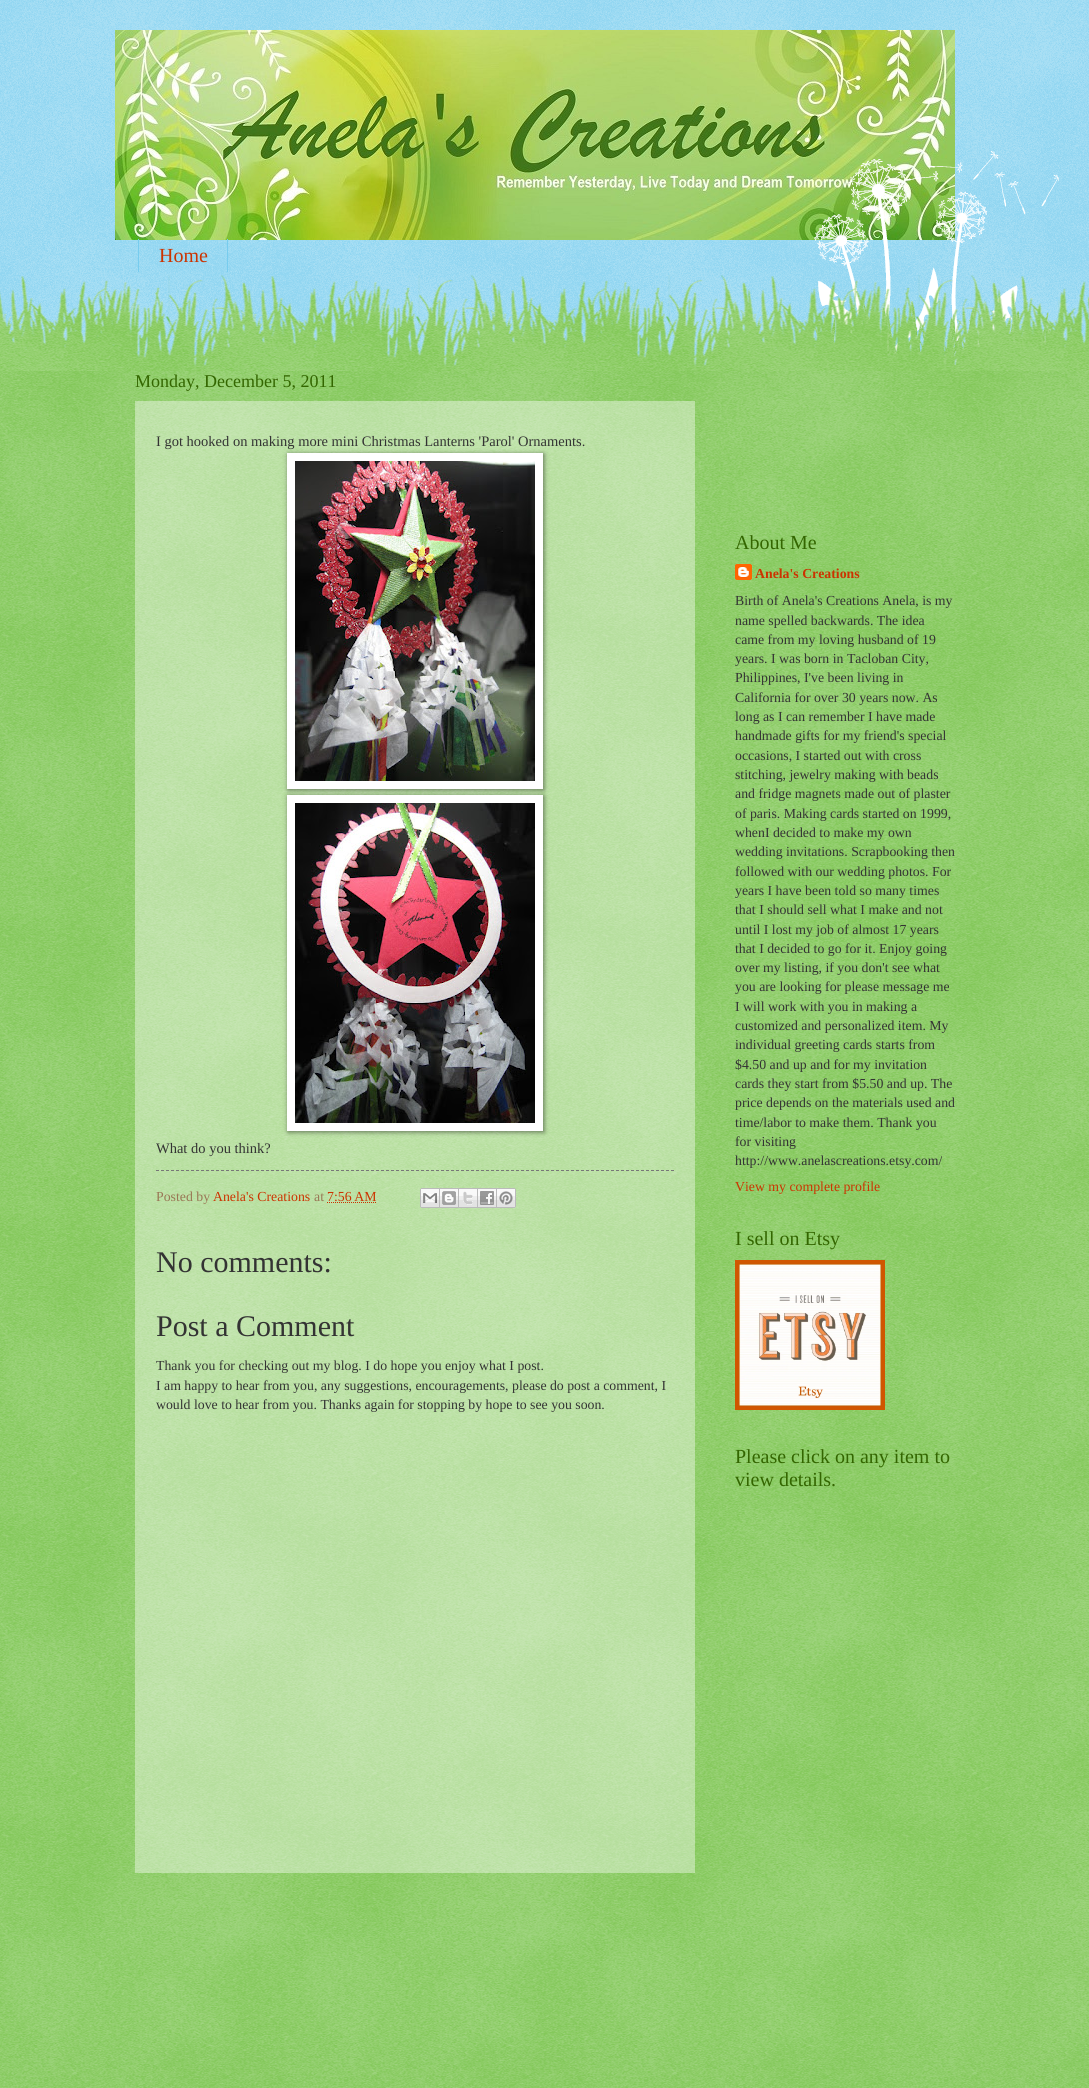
#include <cairo.h>
#include <math.h>
#include <stddef.h>

typedef struct { const char *family; double size; int italic, bold; unsigned color; } style_t;
static cairo_t *ctx;

static void ink(unsigned color) {
    cairo_set_source_rgb(ctx, (color >> 16) / 255.0, (color >> 8 & 255) / 255.0, (color & 255) / 255.0);
}

static void write(double x, double y, const char *s, const style_t *st) {
    cairo_select_font_face(ctx, st->family, st->italic ? CAIRO_FONT_SLANT_ITALIC : CAIRO_FONT_SLANT_NORMAL,
        st->bold ? CAIRO_FONT_WEIGHT_BOLD : CAIRO_FONT_WEIGHT_NORMAL);
    cairo_set_font_size(ctx, st->size);
    ink(st->color);
    cairo_move_to(ctx, x, y);
    cairo_show_text(ctx, s);
}

static void block(double x, double y, double w, double h, unsigned color) {
    ink(color);
    cairo_rectangle(ctx, x, y, w, h);
    cairo_fill(ctx);
}

static void round_path(double x, double y, double w, double h, double r) {
    cairo_new_sub_path(ctx);
    cairo_arc(ctx, x + w - r, y + h - r, r, 0, M_PI / 2);
    cairo_arc(ctx, x + r, y + h - r, r, M_PI / 2, M_PI);
    cairo_arc(ctx, x + r, y + r, r, M_PI, 1.5 * M_PI);
    cairo_arc(ctx, x + w - r, y + r, r, 1.5 * M_PI, 2 * M_PI);
    cairo_close_path(ctx);
}

static void blur_box(double x, double y, double w, double h, double r, double blur, double alpha) {
    cairo_push_group_with_content(ctx, CAIRO_CONTENT_ALPHA);
    cairo_set_operator(ctx, CAIRO_OPERATOR_SOURCE);
    for (int i = 15; i >= -15 && fmin(w, h) + blur * i / 3 > 0; i -= 2) {
        double e = blur * i / 6;
        cairo_set_source_rgba(ctx, 0, 0, 0, alpha * erfc((i - 1) / 8.5) / 2);
        round_path(x - e, y - e, w + 2 * e, h + 2 * e, fmax(0, fmin(r + e + blur * .6, fmin(w, h) / 2 + e)));
        cairo_fill(ctx);
    }
    cairo_pattern_t *soft = cairo_pop_group(ctx);
    cairo_mask(ctx, soft);
    cairo_pattern_destroy(soft);
}

static void paste(const char *path, double x, double y, double w, double h) {
    cairo_surface_t *image = cairo_image_surface_create_from_png(path);
    cairo_save(ctx);
    cairo_set_source_surface(ctx, image, x, y);
    cairo_rectangle(ctx, x, y, w, h);
    cairo_fill(ctx);
    cairo_restore(ctx);
    cairo_surface_destroy(image);
}

static const style_t s1 = {"Liberation Serif", 20, 0, 0, 0xcc3300};
static const style_t s2 = {"Liberation Serif", 18, 0, 0, 0x336600};
static const style_t s3 = {"Liberation Serif", 14.5, 0, 0, 0x333333};
static const style_t s4 = {"Liberation Serif", 13.8, 0, 0, 0x997755};
static const style_t s5 = {"Liberation Serif", 13.8, 0, 0, 0xcc3300};
static const style_t s6 = {"Liberation Serif", 30, 0, 0, 0x333333};
static const style_t s7 = {"Liberation Serif", 13.8, 0, 0, 0x333333};
static const style_t s8 = {"Liberation Serif", 20, 0, 0, 0x336600};
static const style_t s9 = {"Liberation Serif", 13.8, 0, 1, 0xcc3300};

int main(void) {
    cairo_surface_t *surface = cairo_image_surface_create(CAIRO_FORMAT_RGB24, 1089, 2088);
    ctx = cairo_create(surface);
    cairo_font_options_t *options = cairo_font_options_create();
    cairo_font_options_set_hint_metrics(options, CAIRO_HINT_METRICS_OFF);
    cairo_font_options_set_hint_style(options, CAIRO_HINT_STYLE_NONE);
    cairo_set_font_options(ctx, options);
    cairo_set_miter_limit(ctx, 4);
    ink(0x77ccee);
    cairo_paint(ctx);
    paste("pic1.png", 0, 0, 1089, 366);
    paste("pic2.png", 115, 30, 840, 210);
    block(227, 239, 1, 33, 0x77ccee);
    block(138, 239, 1, 33, 0x77ccee);
    write(159, 262, "Home", &s1);
    block(0, 371, 1089, 1717, 0x66bb33);
    paste("pic3.png", 0, 371, 1089, 1717);
    paste("pic4.png", 809, 151, 250, 215);
    paste("pic5.png", 0, 275, 1089, 96);
    write(135, 387, "Monday, December 5, 2011", &s2);
    cairo_set_source_rgba(ctx, 1, 1, 1, 0.4);
    cairo_rectangle(ctx, 135, 401, 560, 1472);
    cairo_fill(ctx);
    write(156, 446, "I got hooked on making more mini Christmas Lanterns 'Parol' Ornaments.", &s3);
    ink(0x000000);
    blur_box(288, 454, 256, 336, 0, 2.5, 0.5);
    block(287, 453, 256, 336, 0xffffff);
    paste("pic6.png", 295, 461, 240, 320);
    ink(0x000000);
    blur_box(288, 796, 256, 336, 0, 2.5, 0.5);
    block(287, 795, 256, 336, 0xffffff);
    paste("pic7.png", 295, 803, 240, 320);
    write(156, 1153, "What do you think?", &s3);
    cairo_new_path(ctx);
    cairo_move_to(ctx, 156, 1170.5);
    cairo_line_to(ctx, 674, 1170.5);
    ink(0x777777);
    cairo_set_line_width(ctx, 1);
    cairo_set_dash(ctx, (double[]){3, 2}, 2, 0);
    cairo_stroke(ctx);
    write(156, 1201, "Posted by", &s4);
    write(213, 1201, "Anela's Creations", &s5);
    write(314, 1201, "at", &s4);
    write(327, 1201, "7:56 AM", &s5);
    cairo_new_path(ctx);
    cairo_move_to(ctx, 327, 1202.5);
    cairo_line_to(ctx, 376.5, 1202.5);
    cairo_set_dash(ctx, (double[]){1, 1}, 2, 0);
    cairo_stroke(ctx);
    paste("pic8.png", 420, 1188, 20, 20);
    paste("pic9.png", 440, 1188, 19, 20);
    paste("pic10.png", 459, 1188, 19, 20);
    paste("pic11.png", 478, 1188, 19, 20);
    paste("pic12.png", 497, 1188, 19, 20);
    write(156, 1272, "No comments:", &s6);
    write(156, 1336, "Post a Comment", &s6);
    write(156, 1370, "Thank you for checking out my blog. I do hope you enjoy what I post.", &s7);
    write(156, 1390, "I am happy to hear from you, any suggestions, encouragements, please do post a comment, I", &s7);
    write(156, 1409, "would love to hear from you. Thanks again for stopping by hope to see you soon.", &s7);
    write(735, 549, "About Me", &s8);
    paste("pic13.png", 735, 564, 17, 16);
    write(755, 578, "Anela's Creations", &s9);
    write(735, 605, "Birth of Anela's Creations Anela, is my", &s7);
    write(735, 625, "name spelled backwards. The idea", &s7);
    write(735, 644, "came from my loving husband of 19", &s7);
    write(735, 663, "years. I was born in Tacloban City,", &s7);
    write(735, 682, "Philippines, I've been living in", &s7);
    write(735, 702, "California for over 30 years now. As", &s7);
    write(735, 721, "long as I can remember I have made", &s7);
    write(735, 740, "handmade gifts for my friend's special", &s7);
    write(735, 760, "occasions, I started out with cross", &s7);
    write(735, 779, "stitching, jewelry making with beads", &s7);
    write(735, 798, "and fridge magnets made out of plaster", &s7);
    write(735, 818, "of paris. Making cards started on 1999,", &s7);
    write(735, 837, "whenI decided to make my own", &s7);
    write(735, 856, "wedding invitations. Scrapbooking then", &s7);
    write(735, 876, "followed with our wedding photos. For", &s7);
    write(735, 895, "years I have been told so many times", &s7);
    write(735, 914, "that I should sell what I make and not", &s7);
    write(735, 934, "until I lost my job of almost 17 years", &s7);
    write(735, 953, "that I decided to go for it. Enjoy going", &s7);
    write(735, 972, "over my listing, if you don't see what", &s7);
    write(735, 991, "you are looking for please message me", &s7);
    write(735, 1011, "I will work with you in making a", &s7);
    write(735, 1030, "customized and personalized item. My", &s7);
    write(735, 1049, "individual greeting cards starts from", &s7);
    write(735, 1069, "$4.50 and up and for my invitation", &s7);
    write(735, 1088, "cards they start from $5.50 and up. The", &s7);
    write(735, 1107, "price depends on the materials used and", &s7);
    write(735, 1127, "time/labor to make them. Thank you", &s7);
    write(735, 1146, "for visiting", &s7);
    write(735, 1165, "http://www.anelascreations.etsy.com/", &s7);
    write(735, 1191, "View my complete profile", &s5);
    write(735, 1245, "I sell on Etsy", &s8);
    paste("pic14.png", 735, 1260, 150, 150);
    write(735, 1463, "Please click on any item to", &s8);
    write(735, 1486, "view details.", &s8);
    cairo_surface_write_to_png(surface, "screenshot.png");
    cairo_font_options_destroy(options);
    cairo_destroy(ctx);
    cairo_surface_destroy(surface);
    return 0;
}
